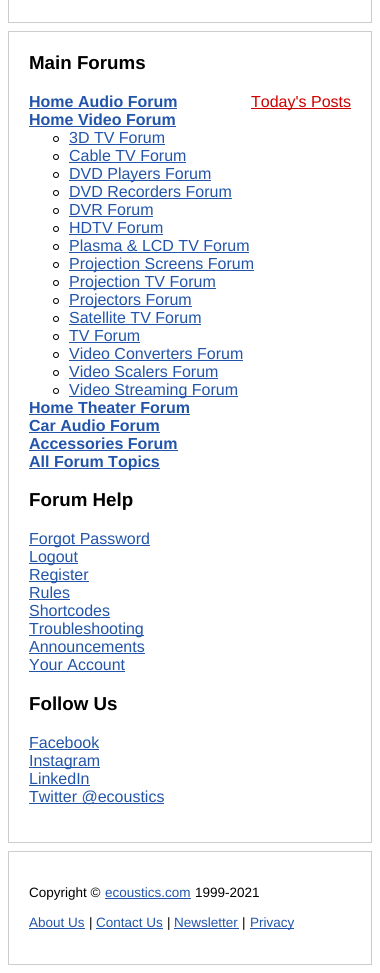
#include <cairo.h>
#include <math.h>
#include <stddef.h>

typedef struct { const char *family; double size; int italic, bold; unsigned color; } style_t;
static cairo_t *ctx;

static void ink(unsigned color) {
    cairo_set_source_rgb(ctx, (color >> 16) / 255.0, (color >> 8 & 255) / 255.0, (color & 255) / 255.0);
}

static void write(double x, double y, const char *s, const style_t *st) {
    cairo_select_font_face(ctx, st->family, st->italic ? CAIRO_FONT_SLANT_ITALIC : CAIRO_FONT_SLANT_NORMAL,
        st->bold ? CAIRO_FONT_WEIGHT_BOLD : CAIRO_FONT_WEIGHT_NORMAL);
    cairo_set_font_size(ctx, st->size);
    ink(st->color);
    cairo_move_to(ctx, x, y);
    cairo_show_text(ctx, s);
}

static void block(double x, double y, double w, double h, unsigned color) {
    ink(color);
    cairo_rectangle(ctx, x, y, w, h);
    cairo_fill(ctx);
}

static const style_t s1 = {"Liberation Sans", 18.75, 0, 1, 0x000000};
static const style_t s2 = {"Liberation Sans", 16, 0, 1, 0x2255aa};
static const style_t s3 = {"Liberation Sans", 16, 0, 0, 0x2255aa};
static const style_t s4 = {"Liberation Sans", 16, 0, 0, 0xcc0000};
static const style_t s5 = {"Liberation Sans", 13.5, 0, 0, 0x000000};
static const style_t s6 = {"Liberation Sans", 13.5, 0, 0, 0x2255aa};

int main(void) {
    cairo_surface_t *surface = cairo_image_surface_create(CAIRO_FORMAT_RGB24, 380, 973);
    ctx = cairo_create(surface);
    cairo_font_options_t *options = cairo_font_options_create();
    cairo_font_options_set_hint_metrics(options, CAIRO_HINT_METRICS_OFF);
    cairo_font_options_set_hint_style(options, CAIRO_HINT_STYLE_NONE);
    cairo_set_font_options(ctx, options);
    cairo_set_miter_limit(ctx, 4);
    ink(0xffffff);
    cairo_paint(ctx);
    cairo_rectangle(ctx, 8.5, -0.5, 363, 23);
    ink(0xcccccc);
    cairo_set_line_width(ctx, 1);
    cairo_stroke(ctx);
    cairo_rectangle(ctx, 8.5, 31.5, 363, 811);
    cairo_stroke(ctx);
    write(29, 69, "Main Forums", &s1);
    write(29, 107, "Home Audio Forum", &s2);
    block(29, 108, 148, 1, 0x2255aa);
    write(29, 125, "Home Video Forum", &s2);
    block(29, 126, 147, 1, 0x2255aa);
    cairo_new_path(ctx);
    cairo_arc(ctx, 56, 139, 2.5, 0, 2 * M_PI);
    ink(0x000000);
    cairo_stroke(ctx);
    write(69, 143, "3D TV Forum", &s3);
    block(69, 144, 96, 1, 0x2255aa);
    cairo_new_path(ctx);
    cairo_arc(ctx, 56, 157, 2.5, 0, 2 * M_PI);
    ink(0x000000);
    cairo_stroke(ctx);
    write(69, 161, "Cable TV Forum", &s3);
    block(69, 162, 117, 1, 0x2255aa);
    cairo_new_path(ctx);
    cairo_arc(ctx, 56, 175, 2.5, 0, 2 * M_PI);
    ink(0x000000);
    cairo_stroke(ctx);
    block(69, 180, 142, 1, 0x2255aa);
    write(69, 179, "DVD Players Forum", &s3);
    cairo_new_path(ctx);
    cairo_arc(ctx, 56, 193, 2.5, 0, 2 * M_PI);
    ink(0x000000);
    cairo_stroke(ctx);
    write(69, 197, "DVD Recorders Forum", &s3);
    block(69, 198, 163, 1, 0x2255aa);
    cairo_new_path(ctx);
    cairo_arc(ctx, 56, 211, 2.5, 0, 2 * M_PI);
    ink(0x000000);
    cairo_stroke(ctx);
    write(69, 215, "DVR Forum", &s3);
    block(69, 216, 84, 1, 0x2255aa);
    cairo_new_path(ctx);
    cairo_arc(ctx, 56, 229, 2.5, 0, 2 * M_PI);
    ink(0x000000);
    cairo_stroke(ctx);
    write(69, 233, "HDTV Forum", &s3);
    block(69, 234, 94, 1, 0x2255aa);
    cairo_new_path(ctx);
    cairo_arc(ctx, 56, 247, 2.5, 0, 2 * M_PI);
    ink(0x000000);
    cairo_stroke(ctx);
    write(69, 251, "Plasma & LCD TV Forum", &s3);
    block(69, 252, 180, 1, 0x2255aa);
    cairo_new_path(ctx);
    cairo_arc(ctx, 56, 265, 2.5, 0, 2 * M_PI);
    ink(0x000000);
    cairo_stroke(ctx);
    block(69, 270, 185, 1, 0x2255aa);
    write(69, 269, "Projection Screens Forum", &s3);
    cairo_new_path(ctx);
    cairo_arc(ctx, 56, 283, 2.5, 0, 2 * M_PI);
    ink(0x000000);
    cairo_stroke(ctx);
    block(69, 288, 147, 1, 0x2255aa);
    write(69, 287, "Projection TV Forum", &s3);
    cairo_new_path(ctx);
    cairo_arc(ctx, 56, 301, 2.5, 0, 2 * M_PI);
    ink(0x000000);
    cairo_stroke(ctx);
    block(69, 306, 123, 1, 0x2255aa);
    write(69, 305, "Projectors Forum", &s3);
    cairo_new_path(ctx);
    cairo_arc(ctx, 56, 319, 2.5, 0, 2 * M_PI);
    ink(0x000000);
    cairo_stroke(ctx);
    write(69, 323, "Satellite TV Forum", &s3);
    block(69, 324, 132, 1, 0x2255aa);
    cairo_new_path(ctx);
    cairo_arc(ctx, 56, 337, 2.5, 0, 2 * M_PI);
    ink(0x000000);
    cairo_stroke(ctx);
    write(69, 341, "TV Forum", &s3);
    block(69, 342, 71, 1, 0x2255aa);
    cairo_new_path(ctx);
    cairo_arc(ctx, 56, 355, 2.5, 0, 2 * M_PI);
    ink(0x000000);
    cairo_stroke(ctx);
    write(69, 359, "Video Converters Forum", &s3);
    block(69, 360, 174, 1, 0x2255aa);
    cairo_new_path(ctx);
    cairo_arc(ctx, 56, 373, 2.5, 0, 2 * M_PI);
    ink(0x000000);
    cairo_stroke(ctx);
    write(69, 377, "Video Scalers Forum", &s3);
    block(69, 378, 149, 1, 0x2255aa);
    cairo_new_path(ctx);
    cairo_arc(ctx, 56, 391, 2.5, 0, 2 * M_PI);
    ink(0x000000);
    cairo_stroke(ctx);
    block(69, 396, 169, 1, 0x2255aa);
    write(69, 395, "Video Streaming Forum", &s3);
    write(29, 413, "Home Theater Forum", &s2);
    block(29, 414, 161, 1, 0x2255aa);
    write(29, 431, "Car Audio Forum", &s2);
    block(29, 432, 131, 1, 0x2255aa);
    write(29, 449, "Accessories Forum", &s2);
    block(29, 450, 149, 1, 0x2255aa);
    block(29, 468, 131, 1, 0x2255aa);
    write(29, 467, "All Forum Topics", &s2);
    block(251, 108, 100, 1, 0xcc0000);
    write(251, 107, "Today's Posts", &s4);
    write(29, 506, "Forum Help", &s1);
    block(29, 545, 121, 1, 0x2255aa);
    write(29, 544, "Forgot Password", &s3);
    block(29, 563, 49, 1, 0x2255aa);
    write(29, 562, "Logout", &s3);
    block(29, 581, 60, 1, 0x2255aa);
    write(29, 580, "Register", &s3);
    write(29, 598, "Rules", &s3);
    block(29, 599, 41, 1, 0x2255aa);
    write(29, 616, "Shortcodes", &s3);
    block(29, 617, 81, 1, 0x2255aa);
    block(29, 635, 115, 1, 0x2255aa);
    write(29, 634, "Troubleshooting", &s3);
    write(29, 652, "Announcements", &s3);
    block(29, 653, 116, 1, 0x2255aa);
    write(29, 670, "Your Account", &s3);
    block(29, 671, 96, 1, 0x2255aa);
    write(29, 710, "Follow Us", &s1);
    write(29, 748, "Facebook", &s3);
    block(29, 749, 70, 1, 0x2255aa);
    block(29, 767, 71, 1, 0x2255aa);
    write(29, 766, "Instagram", &s3);
    write(29, 784, "LinkedIn", &s3);
    block(29, 785, 61, 1, 0x2255aa);
    block(29, 803, 135, 1, 0x2255aa);
    write(29, 802, "Twitter @ecoustics", &s3);
    cairo_rectangle(ctx, 8.5, 851.5, 363, 113);
    ink(0xcccccc);
    cairo_stroke(ctx);
    write(29, 897, "Copyright ©", &s5);
    write(105, 897, "ecoustics.com", &s6);
    block(105, 898, 86, 1, 0x2255aa);
    write(195, 897, "1999-2021", &s5);
    write(29, 927, "About Us", &s6);
    block(29, 928, 56, 1, 0x2255aa);
    write(89, 927, "|", &s5);
    write(96, 927, "Contact Us", &s6);
    block(96, 928, 67, 1, 0x2255aa);
    write(167, 927, "|", &s5);
    write(174, 927, "Newsletter", &s6);
    block(174, 928, 65, 1, 0x2255aa);
    write(242, 927, "|", &s5);
    block(250, 928, 44, 1, 0x2255aa);
    write(250, 927, "Privacy", &s6);
    cairo_surface_write_to_png(surface, "screenshot.png");
    cairo_font_options_destroy(options);
    cairo_destroy(ctx);
    cairo_surface_destroy(surface);
    return 0;
}
